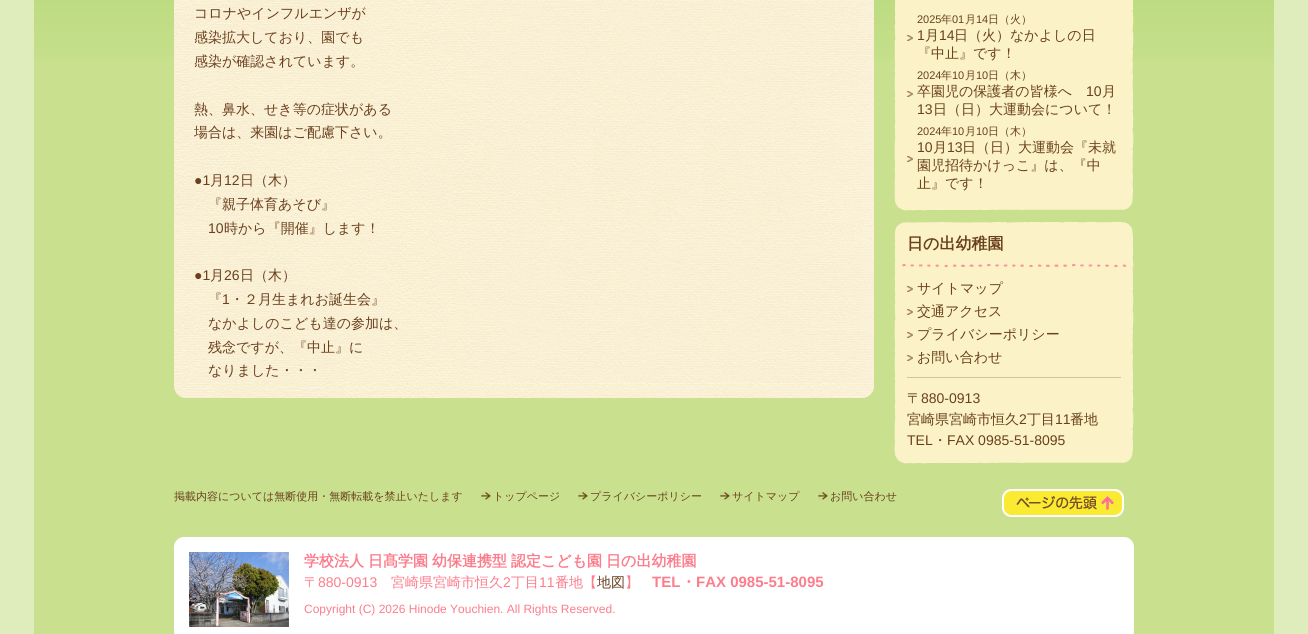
#include <cairo.h>
#include <math.h>
#include <stddef.h>

typedef struct { const char *family; double size; int italic, bold; unsigned color; } style_t;
static cairo_t *ctx;

static void ink(unsigned color) {
    cairo_set_source_rgb(ctx, (color >> 16) / 255.0, (color >> 8 & 255) / 255.0, (color & 255) / 255.0);
}

static void write(double x, double y, const char *s, const style_t *st) {
    cairo_select_font_face(ctx, st->family, st->italic ? CAIRO_FONT_SLANT_ITALIC : CAIRO_FONT_SLANT_NORMAL,
        st->bold ? CAIRO_FONT_WEIGHT_BOLD : CAIRO_FONT_WEIGHT_NORMAL);
    cairo_set_font_size(ctx, st->size);
    ink(st->color);
    cairo_move_to(ctx, x, y);
    cairo_show_text(ctx, s);
}

static void write_spaced(double x, double y, const char *s, double letter, double word) {
    cairo_move_to(ctx, x, y);
    while (*s) {
        char ch[5] = {0};
        int n = 0;
        do ch[n++] = *s++; while ((*s & 0xC0) == 0x80);
        cairo_show_text(ctx, ch);
        cairo_rel_move_to(ctx, letter + word * (*ch == ' '), 0);
    }
}

static void block(double x, double y, double w, double h, unsigned color) {
    ink(color);
    cairo_rectangle(ctx, x, y, w, h);
    cairo_fill(ctx);
}

static void round_path(double x, double y, double w, double h, double r) {
    cairo_new_sub_path(ctx);
    cairo_arc(ctx, x + w - r, y + h - r, r, 0, M_PI / 2);
    cairo_arc(ctx, x + r, y + h - r, r, M_PI / 2, M_PI);
    cairo_arc(ctx, x + r, y + r, r, M_PI, 1.5 * M_PI);
    cairo_arc(ctx, x + w - r, y + r, r, 1.5 * M_PI, 2 * M_PI);
    cairo_close_path(ctx);
}

static void paste(const char *path, double x, double y, double w, double h) {
    cairo_surface_t *image = cairo_image_surface_create_from_png(path);
    cairo_save(ctx);
    cairo_set_source_surface(ctx, image, x, y);
    cairo_rectangle(ctx, x, y, w, h);
    cairo_fill(ctx);
    cairo_restore(ctx);
    cairo_surface_destroy(image);
}

static const style_t s1 = {"WenQuanYi Zen Hei Medium", 14, 0, 0, 0x6a401e};
static const style_t s2 = {"Liberation Sans", 14, 0, 0, 0x6a401e};
static const style_t s3 = {"Liberation Sans", 11, 0, 0, 0x6a401e};
static const style_t s4 = {"WenQuanYi Zen Hei Medium", 11, 0, 0, 0x6a401e};
static const style_t s5 = {"WenQuanYi Zen Hei", 16, 0, 1, 0x6a401e};
static const style_t s6 = {"WenQuanYi Zen Hei Medium", 14, 0, 0, 0xfc7d8c};
static const style_t s7 = {"Liberation Sans", 14, 0, 0, 0xfc7d8c};
static const style_t s8 = {"Liberation Sans", 15, 0, 1, 0xfc7d8c};
static const style_t s9 = {"WenQuanYi Zen Hei", 15, 0, 1, 0xfc7d8c};
static const style_t s10 = {"Liberation Sans", 12, 0, 0, 0xfc7d8c};

int main(void) {
    cairo_surface_t *surface = cairo_image_surface_create(CAIRO_FORMAT_RGB24, 1308, 634);
    ctx = cairo_create(surface);
    cairo_font_options_t *options = cairo_font_options_create();
    cairo_font_options_set_hint_metrics(options, CAIRO_HINT_METRICS_OFF);
    cairo_font_options_set_hint_style(options, CAIRO_HINT_STYLE_NONE);
    cairo_set_font_options(ctx, options);
    cairo_set_miter_limit(ctx, 4);
    ink(0xdfedbd);
    cairo_paint(ctx);
    block(34, 60, 1240, 574, 0xc9e18f);
    paste("pic1.png", 34, 0, 1240, 60);
    paste("pic2.png", 174, 383, 700, 15);
    paste("pic3.png", 174, 0, 700, 383);
    write(194, 18, "コロナやインフルエンザが", &s1);
    write(194, 42, "感染拡大しており、園でも", &s1);
    write(194, 66, "感染が確認されています。", &s1);
    write(194, 114, "熱、鼻水、せき等の症状がある", &s1);
    write(194, 137, "場合は、来園はご配慮下さい。", &s1);
    write(194, 185, "●1", &s2);
    write(210, 185, "月", &s1);
    write(224, 185, "12", &s2);
    write(240, 185, "日（木）", &s1);
    write(208, 209, "『親子体育あそび』", &s1);
    write(208, 233, "10", &s2);
    write(224, 233, "時から『開催』します！", &s1);
    write(194, 280, "●1", &s2);
    write(210, 280, "月", &s1);
    write(224, 280, "26", &s2);
    write(240, 280, "日（木）", &s1);
    write(208, 304, "『", &s1);
    write(222, 304, "1", &s2);
    write(230, 304, "・２月生まれお誕生会』", &s1);
    write(208, 328, "なかよしのこども達の参加は、", &s1);
    write(208, 352, "残念ですが、『中止』に", &s1);
    write(208, 375, "なりました・・・", &s1);
    paste("pic4.png", 894, 187, 239, 24);
    paste("pic5.png", 894, 0, 240, 193);
    paste("pic6.png", 907, 35, 6, 6);
    write(917, 23, "2025", &s3);
    write(941, 23, "年", &s4);
    write(952, 23, "01", &s3);
    write(965, 23, "月", &s4);
    write(976, 23, "14", &s3);
    write(988, 23, "日（火）", &s4);
    write(917, 40, "1", &s2);
    write(925, 40, "月", &s1);
    write(939, 40, "14", &s2);
    write(954, 40, "日（火）なかよしの日", &s1);
    write(917, 58, "『中止』です！", &s1);
    paste("pic6.png", 907, 91, 6, 6);
    write(917, 79, "2024", &s3);
    write(941, 79, "年", &s4);
    write(952, 79, "10", &s3);
    write(965, 79, "月", &s4);
    write(976, 79, "10", &s3);
    write(988, 79, "日（木）", &s4);
    write(917, 96, "卒園児の保護者の皆様へ", &s1);
    write(1086, 96, "10", &s2);
    write(1102, 96, "月", &s1);
    write(917, 114, "13", &s2);
    write(933, 114, "日（日）大運動会について！", &s1);
    paste("pic6.png", 907, 156, 6, 6);
    write(917, 135, "2024", &s3);
    write(941, 135, "年", &s4);
    write(952, 135, "10", &s3);
    write(965, 135, "月", &s4);
    write(976, 135, "10", &s3);
    write(988, 135, "日（木）", &s4);
    write(917, 152, "10", &s2);
    write(933, 152, "月", &s1);
    write(947, 152, "13", &s2);
    write(962, 152, "日（日）大運動会『未就", &s1);
    write(917, 170, "園児招待かけっこ』は、『中", &s1);
    write(917, 188, "止』です！", &s1);
    paste("pic4.png", 894, 440, 239, 24);
    paste("pic7.png", 894, 221, 240, 46);
    write(907, 249, "日の出幼稚園", &s5);
    paste("pic8.png", 894, 267, 240, 184);
    paste("pic6.png", 907, 286, 6, 6);
    write(917, 293, "サイトマップ", &s1);
    paste("pic6.png", 907, 309, 6, 6);
    write(917, 316, "交通アクセス", &s1);
    paste("pic6.png", 907, 332, 6, 6);
    write(917, 339, "プライバシーポリシー", &s1);
    paste("pic6.png", 907, 355, 6, 6);
    write(917, 362, "お問い合わせ", &s1);
    block(907, 377, 214, 1, 0xd4c299);
    write(907, 403, "〒", &s1);
    write(921, 403, "880-0913", &s2);
    write(907, 424, "宮崎県宮崎市恒久", &s1);
    write(1019, 424, "2", &s2);
    write(1027, 424, "丁目", &s1);
    write(1055, 424, "11", &s2);
    write(1070, 424, "番地", &s1);
    write(907, 445, "TEL", &s2);
    write(933, 445, "・", &s1);
    write(947, 445, "FAX 0985-51-8095", &s2);
    write(174, 500, "掲載内容については無断使用・無断転載を禁止いたします", &s4);
    paste("pic9.png", 481, 492, 10, 8);
    write(493, 500, "トップページ", &s4);
    paste("pic9.png", 578, 492, 10, 8);
    write(590, 500, "プライバシーポリシー", &s4);
    paste("pic9.png", 720, 492, 10, 8);
    write(732, 500, "サイトマップ", &s4);
    paste("pic9.png", 818, 492, 10, 8);
    write(830, 500, "お問い合わせ", &s4);
    paste("pic10.png", 1002, 489, 122, 28);
    ink(0xffffff);
    round_path(174, 537, 960, 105, 10);
    cairo_fill(ctx);
    paste("pic11.png", 189, 552, 100, 75);
    cairo_select_font_face(ctx, "WenQuanYi Zen Hei", CAIRO_FONT_SLANT_NORMAL, CAIRO_FONT_WEIGHT_BOLD);
    cairo_set_font_size(ctx, 15);
    ink(0xfc7d8c);
    write_spaced(304, 566, "学校法人 日髙学園 幼保連携型 認定こども園 日の出幼稚園", 0, -0.5);
    write(304, 587, "〒", &s6);
    write(318, 587, "880-0913", &s7);
    write(391, 587, "宮崎県宮崎市恒久", &s6);
    write(503, 587, "2", &s7);
    write(511, 587, "丁目", &s6);
    write(539, 587, "11", &s7);
    write(555, 587, "番地【", &s6);
    write(597, 587, "地図", &s1);
    write(625, 587, "】", &s6);
    write(652, 587, "TEL", &s8);
    write(681, 587, "・", &s9);
    write(696, 587, "FAX 0985-51-8095", &s8);
    write(304, 613, "Copyright (C) 2026 Hinode Youchien. All Rights Reserved.", &s10);
    cairo_surface_write_to_png(surface, "screenshot.png");
    cairo_font_options_destroy(options);
    cairo_destroy(ctx);
    cairo_surface_destroy(surface);
    return 0;
}
